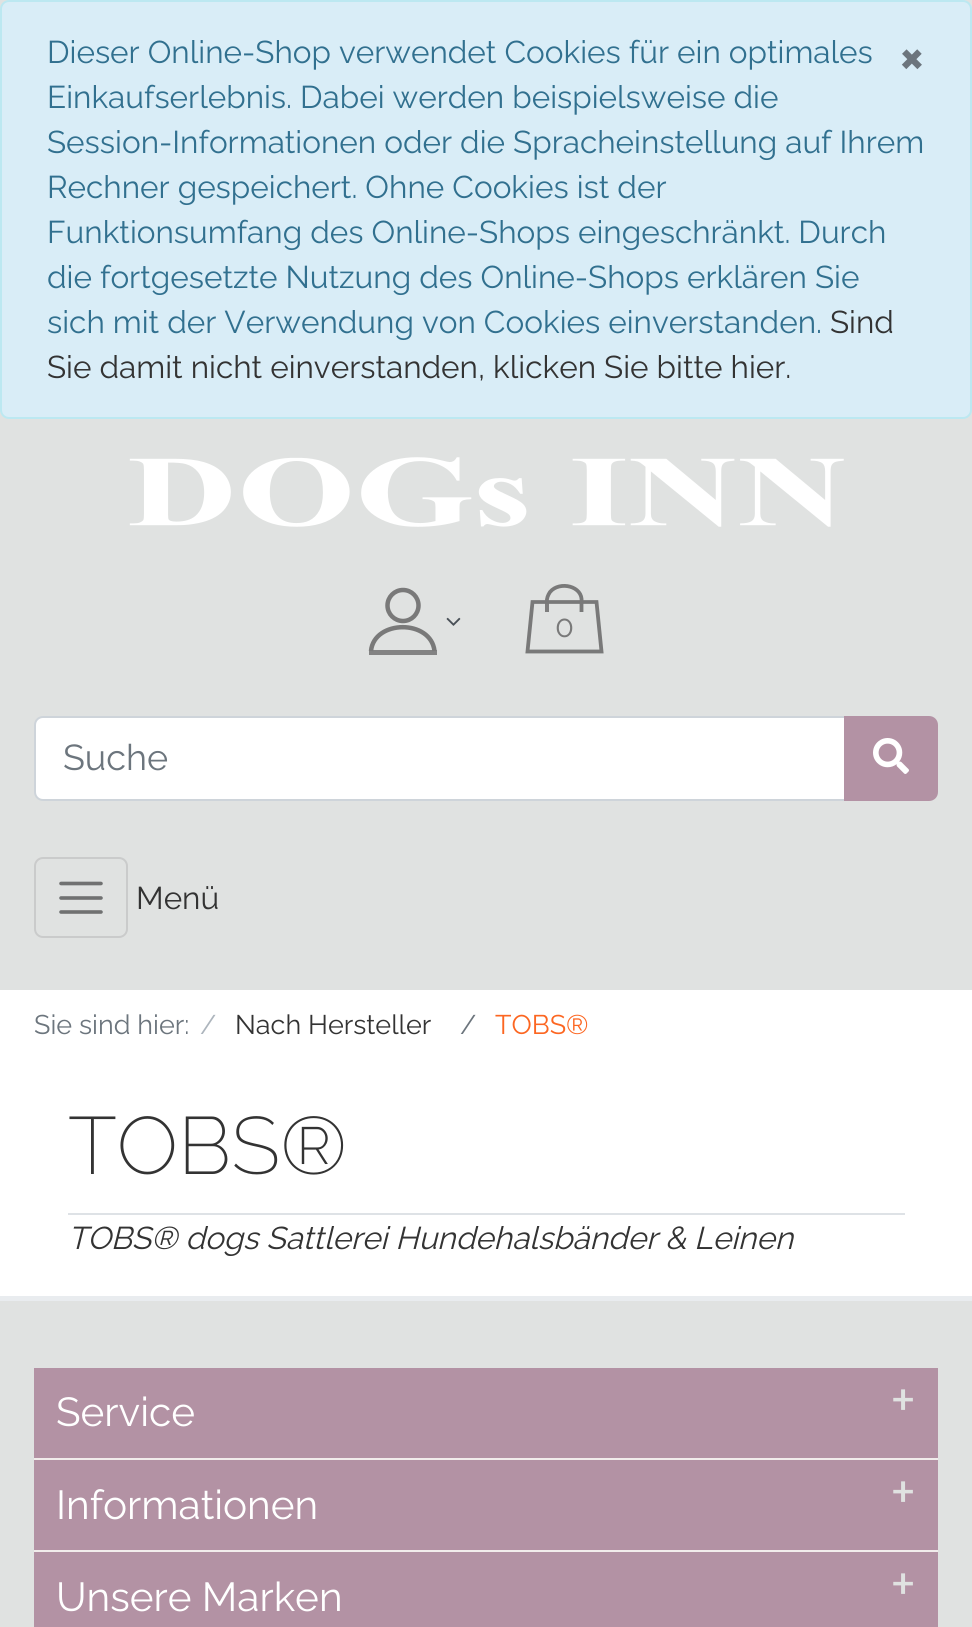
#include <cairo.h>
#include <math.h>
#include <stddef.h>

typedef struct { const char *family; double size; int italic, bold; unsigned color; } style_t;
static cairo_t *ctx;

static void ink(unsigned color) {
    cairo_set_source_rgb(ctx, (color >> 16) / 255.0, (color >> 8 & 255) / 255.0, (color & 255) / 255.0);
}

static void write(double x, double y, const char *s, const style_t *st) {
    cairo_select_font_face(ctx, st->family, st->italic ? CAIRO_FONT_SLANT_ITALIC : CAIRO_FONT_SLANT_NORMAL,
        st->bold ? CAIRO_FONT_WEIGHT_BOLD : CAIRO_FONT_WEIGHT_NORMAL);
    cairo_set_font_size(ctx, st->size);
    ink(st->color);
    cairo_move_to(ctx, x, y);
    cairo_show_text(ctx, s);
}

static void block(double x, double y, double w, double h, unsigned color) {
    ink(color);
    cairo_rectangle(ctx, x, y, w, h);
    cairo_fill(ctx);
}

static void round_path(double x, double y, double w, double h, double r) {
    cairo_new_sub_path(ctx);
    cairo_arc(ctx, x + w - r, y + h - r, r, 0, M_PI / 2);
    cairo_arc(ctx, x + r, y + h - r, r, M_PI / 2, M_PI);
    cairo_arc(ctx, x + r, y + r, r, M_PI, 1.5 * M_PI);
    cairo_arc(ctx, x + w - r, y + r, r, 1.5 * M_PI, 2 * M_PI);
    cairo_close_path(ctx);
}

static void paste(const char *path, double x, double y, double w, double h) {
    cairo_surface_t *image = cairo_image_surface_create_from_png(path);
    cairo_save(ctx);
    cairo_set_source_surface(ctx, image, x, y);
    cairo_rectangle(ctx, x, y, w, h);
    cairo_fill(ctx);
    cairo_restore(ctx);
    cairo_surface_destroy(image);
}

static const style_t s1 = {"Raleway", 31.5, 0, 0, 0x31708f};
static const style_t s2 = {"Raleway", 54, 0, 1, 0x6c757d};
static const style_t s3 = {"Raleway", 31.5, 0, 0, 0x333333};
static const style_t s4 = {"Raleway", 31, 0, 0, 0x797979};
static const style_t s5 = {"Raleway", 36, 0, 0, 0x6c757d};
static const style_t s6 = {"Raleway", 27, 0, 0, 0x6c757d};
static const style_t s7 = {"Raleway", 27, 0, 0, 0xadb5bd};
static const style_t s8 = {"Raleway", 27, 0, 0, 0x333333};
static const style_t s9 = {"Raleway", 27, 0, 0, 0xfc6621};
static const style_t s10 = {"Raleway ExtraLight", 81, 0, 0, 0x333333};
static const style_t s11 = {"Raleway", 31.5, 1, 0, 0x333333};
static const style_t s12 = {"Raleway", 40.5, 0, 0, 0xffffff};
static const style_t s13 = {"Raleway", 63, 0, 0, 0xe0e2e1};

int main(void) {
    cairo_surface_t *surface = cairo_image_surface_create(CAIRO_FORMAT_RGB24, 972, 1627);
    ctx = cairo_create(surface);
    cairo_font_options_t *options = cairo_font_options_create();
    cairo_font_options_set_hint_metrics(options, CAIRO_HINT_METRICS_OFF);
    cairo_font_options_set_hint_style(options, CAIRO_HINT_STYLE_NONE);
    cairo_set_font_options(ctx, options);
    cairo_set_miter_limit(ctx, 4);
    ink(0xe0e2e1);
    cairo_paint(ctx);
    ink(0xd9edf7);
    round_path(1, 1, 970, 417, 8);
    cairo_fill_preserve(ctx);
    ink(0xbce8f1);
    cairo_stroke(ctx);
    write(47, 63, "Dieser Online-Shop verwendet Cookies für ein optimales", &s1);
    write(899, 74, "×", &s2);
    write(47, 108, "Einkaufserlebnis. Dabei werden beispielsweise die", &s1);
    write(47, 153, "Session-Informationen oder die Spracheinstellung auf Ihrem", &s1);
    write(47, 198, "Rechner gespeichert. Ohne Cookies ist der", &s1);
    write(47, 243, "Funktionsumfang des Online-Shops eingeschränkt. Durch", &s1);
    write(47, 288, "die fortgesetzte Nutzung des Online-Shops erklären Sie", &s1);
    write(47, 333, "sich mit der Verwendung von Cookies einverstanden.", &s1);
    write(830, 333, "Sind", &s3);
    write(47, 378, "Sie damit nicht einverstanden, klicken Sie bitte hier.", &s3);
    paste("pic1.png", 129, 457, 715, 70);
    cairo_arc(ctx, 403, 605.5, 15.5, 0, 2 * M_PI);
    ink(0x797979);
    cairo_set_line_width(ctx, 4.5);
    cairo_stroke(ctx);
    paste("pic2.png", 446, 617, 15, 9);
    cairo_new_path(ctx);
    cairo_move_to(ctx, 371, 651);
    cairo_curve_to(ctx, 374, 619.5, 431, 619, 434.5, 651);
    cairo_stroke(ctx);
    cairo_set_source_rgba(ctx, 0.475, 0.475, 0.475, 0.9);
    cairo_rectangle(ctx, 369, 650, 68, 5);
    cairo_fill(ctx);
    cairo_new_path(ctx);
    cairo_move_to(ctx, 596.5, 602);
    cairo_line_to(ctx, 532.5, 602);
    cairo_line_to(ctx, 527.5, 651.5);
    cairo_line_to(ctx, 601.5, 651.5);
    cairo_close_path(ctx);
    ink(0x797979);
    cairo_set_line_width(ctx, 3.8);
    cairo_stroke(ctx);
    write(555, 637, "0", &s4);
    cairo_new_path(ctx);
    cairo_move_to(ctx, 547, 602);
    cairo_curve_to(ctx, 546.5, 598.5, 548, 595, 550, 592);
    cairo_curve_to(ctx, 559.5, 580.5, 583.5, 586, 581.5, 602);
    cairo_stroke(ctx);
    cairo_set_source_rgba(ctx, 0.475, 0.475, 0.475, 0.95);
    cairo_rectangle(ctx, 545, 602, 4, 10);
    cairo_fill(ctx);
    cairo_new_path(ctx);
    cairo_move_to(ctx, 581.5, 612);
    cairo_line_to(ctx, 581.5, 602);
    ink(0x797979);
    cairo_stroke(ctx);
    ink(0xffffff);
    cairo_new_path(ctx);
    cairo_move_to(ctx, 43, 717);
    cairo_line_to(ctx, 845, 717);
    cairo_line_to(ctx, 845, 800);
    cairo_line_to(ctx, 43, 800);
    cairo_curve_to(ctx, 38.5, 800, 35, 796.5, 35, 792);
    cairo_line_to(ctx, 35, 725);
    cairo_curve_to(ctx, 35, 720.5, 38.5, 717, 43, 717);
    cairo_close_path(ctx);
    cairo_fill_preserve(ctx);
    ink(0xced4da);
    cairo_set_line_width(ctx, 2);
    cairo_stroke(ctx);
    write(63, 770, "Suche", &s5);
    ink(0xb392a4);
    cairo_new_path(ctx);
    cairo_move_to(ctx, 845, 717);
    cairo_line_to(ctx, 929, 717);
    cairo_curve_to(ctx, 933.5, 717, 937, 720.5, 937, 725);
    cairo_line_to(ctx, 937, 792);
    cairo_curve_to(ctx, 937, 796.5, 933.5, 800, 929, 800);
    cairo_line_to(ctx, 845, 800);
    cairo_close_path(ctx);
    cairo_fill_preserve(ctx);
    cairo_stroke(ctx);
    paste("pic3.png", 873, 738, 36, 36);
    round_path(35, 858, 92, 79, 8);
    ink(0xcacbcb);
    cairo_stroke(ctx);
    cairo_new_path(ctx);
    cairo_move_to(ctx, 61, 883.5);
    cairo_line_to(ctx, 101, 883.5);
    cairo_move_to(ctx, 61, 898);
    cairo_line_to(ctx, 101, 898);
    cairo_move_to(ctx, 61, 912);
    cairo_line_to(ctx, 101, 912);
    ink(0x707171);
    cairo_set_line_width(ctx, 3.6);
    cairo_set_line_cap(ctx, CAIRO_LINE_CAP_ROUND);
    cairo_stroke(ctx);
    write(136, 909, "Menü", &s3);
    block(0, 990, 972, 306, 0xffffff);
    write(34, 1034, "Sie sind hier:", &s6);
    write(200, 1034, "/", &s7);
    write(235, 1034, "Nach Hersteller", &s8);
    write(460, 1034, "/", &s6);
    write(495, 1034, "TOBS®", &s9);
    block(68, 1213, 837, 2, 0xdee2e6);
    write(68, 1174, "TOBS®", &s10);
    write(68, 1249, "TOBS® dogs Sattlerei Hundehalsbänder & Leinen", &s11);
    block(0, 1296, 972, 5, 0xe9ecef);
    block(34, 1368, 904, 90, 0xb392a4);
    block(34, 1458, 904, 2, 0xf1eceb);
    write(56, 1426, "Service", &s12);
    write(890, 1422, "+", &s13);
    block(34, 1460, 904, 167, 0xb392a4);
    block(34, 1550, 904, 2, 0xf1eceb);
    write(56, 1519, "Informationen", &s12);
    write(890, 1514, "+", &s13);
    write(56, 1611, "Unsere Marken", &s12);
    write(890, 1606, "+", &s13);
    cairo_surface_write_to_png(surface, "screenshot.png");
    cairo_font_options_destroy(options);
    cairo_destroy(ctx);
    cairo_surface_destroy(surface);
    return 0;
}
